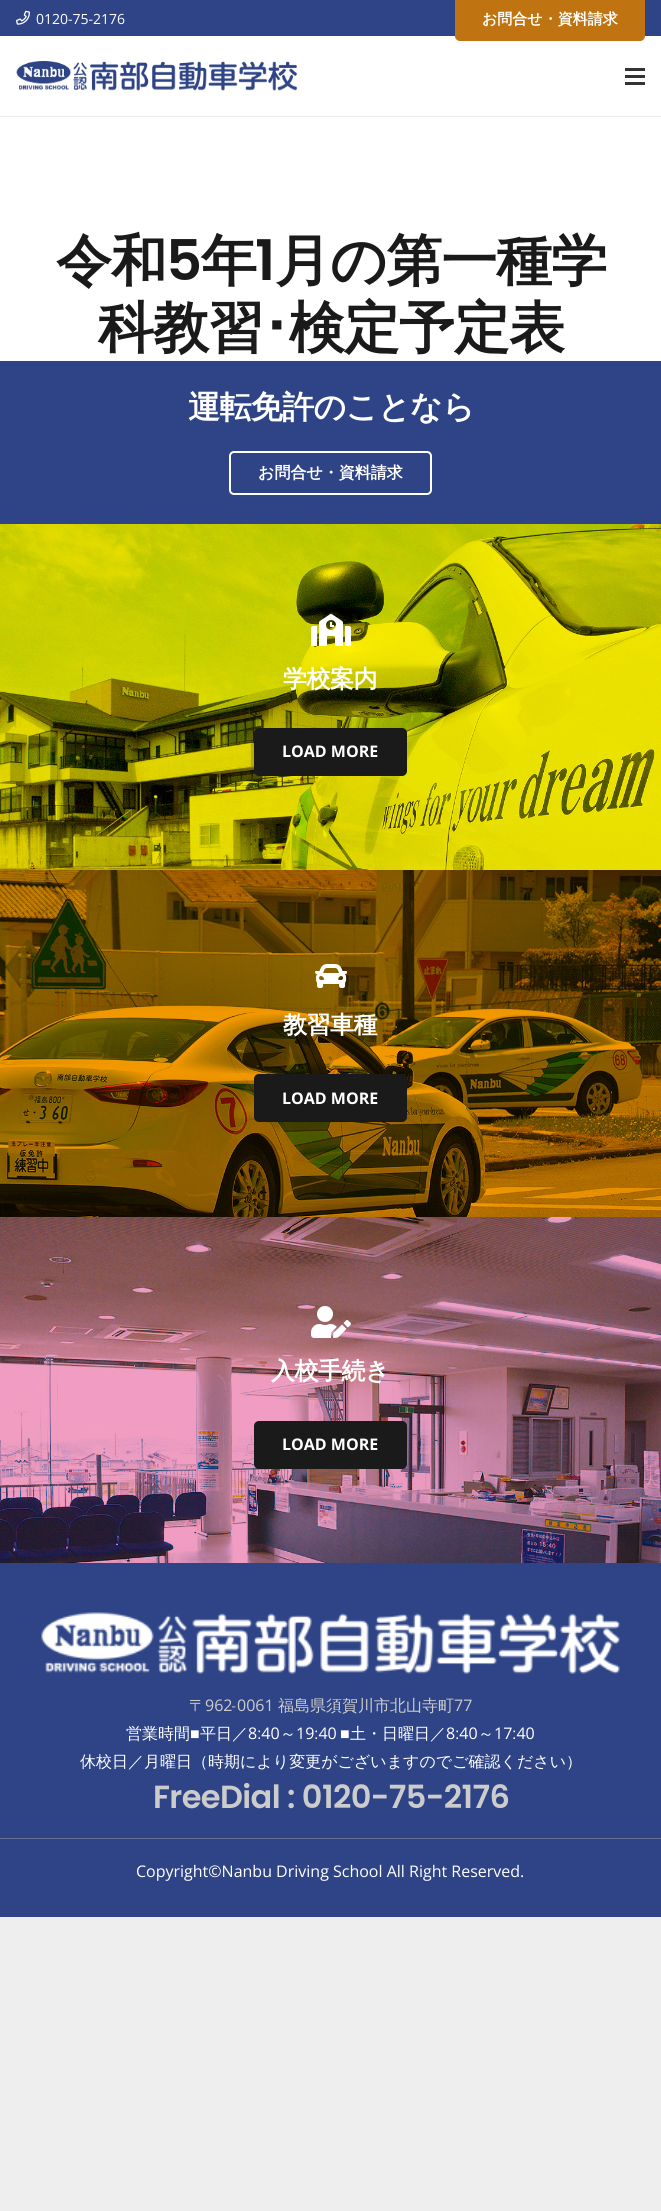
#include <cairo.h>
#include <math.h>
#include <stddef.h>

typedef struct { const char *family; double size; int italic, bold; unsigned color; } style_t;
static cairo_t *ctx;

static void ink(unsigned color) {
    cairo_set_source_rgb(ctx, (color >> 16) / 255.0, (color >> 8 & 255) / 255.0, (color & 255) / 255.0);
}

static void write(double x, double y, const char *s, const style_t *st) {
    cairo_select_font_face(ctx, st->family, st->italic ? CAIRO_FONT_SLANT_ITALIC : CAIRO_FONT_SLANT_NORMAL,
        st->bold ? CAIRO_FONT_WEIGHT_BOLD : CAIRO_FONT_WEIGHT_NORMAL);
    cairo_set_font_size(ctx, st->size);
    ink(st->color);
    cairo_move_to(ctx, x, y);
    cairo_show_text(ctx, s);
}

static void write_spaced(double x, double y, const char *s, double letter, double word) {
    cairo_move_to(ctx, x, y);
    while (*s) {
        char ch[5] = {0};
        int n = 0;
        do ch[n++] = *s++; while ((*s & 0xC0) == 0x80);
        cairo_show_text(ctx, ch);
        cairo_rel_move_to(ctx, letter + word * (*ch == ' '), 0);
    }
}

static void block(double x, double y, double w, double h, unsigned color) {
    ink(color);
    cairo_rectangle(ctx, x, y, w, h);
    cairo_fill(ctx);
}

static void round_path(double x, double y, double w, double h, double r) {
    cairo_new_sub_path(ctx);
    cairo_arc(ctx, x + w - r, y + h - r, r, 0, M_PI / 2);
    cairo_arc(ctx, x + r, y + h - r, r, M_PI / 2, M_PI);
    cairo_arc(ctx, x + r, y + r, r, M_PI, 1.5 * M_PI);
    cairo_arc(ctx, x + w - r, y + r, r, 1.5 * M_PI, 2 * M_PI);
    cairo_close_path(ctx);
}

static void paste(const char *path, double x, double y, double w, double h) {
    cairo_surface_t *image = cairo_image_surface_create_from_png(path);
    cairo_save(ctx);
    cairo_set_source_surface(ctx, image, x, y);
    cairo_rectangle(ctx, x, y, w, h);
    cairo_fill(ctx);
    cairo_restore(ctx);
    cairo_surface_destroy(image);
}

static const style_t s1 = {"Open Sans", 14, 0, 0, 0xffffff};
static const style_t s2 = {"WenQuanYi Zen Hei", 15, 0, 1, 0xffffff};
static const style_t s3 = {"WenQuanYi Zen Hei", 16, 0, 1, 0xffffff};
static const style_t s4 = {"Open Sans", 16, 0, 1, 0xffffff};
static const style_t s5 = {"WenQuanYi Zen Hei Medium", 16, 0, 0, 0xcccccc};
static const style_t s6 = {"Open Sans", 16, 0, 0, 0xcccccc};
static const style_t s7 = {"WenQuanYi Zen Hei Medium", 16, 0, 0, 0xffffff};
static const style_t s8 = {"Liberation Sans", 16, 0, 0, 0xffffff};
static const style_t s9 = {"Open Sans", 16, 0, 0, 0xffffff};

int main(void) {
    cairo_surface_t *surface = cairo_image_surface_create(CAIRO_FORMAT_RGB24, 661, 2211);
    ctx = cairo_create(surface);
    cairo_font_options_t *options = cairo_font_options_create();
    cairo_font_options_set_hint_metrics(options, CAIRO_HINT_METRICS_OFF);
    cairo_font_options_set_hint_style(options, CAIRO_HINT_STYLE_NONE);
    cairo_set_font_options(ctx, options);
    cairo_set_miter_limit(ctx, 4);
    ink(0xeeeeee);
    cairo_paint(ctx);
    block(0, 36, 661, 325, 0xffffff);
    block(0, 0, 661, 36, 0x2e4486);
    paste("pic1.png", 16, 10, 14, 15);
    write(36, 24, "0120-75-2176", &s1);
    ink(0xbf7411);
    round_path(455, -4, 190, 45, 5);
    cairo_fill(ctx);
    write(482, 24, "お問合せ・資料請求", &s2);
    block(0, 116, 661, 1, 0xebebeb);
    paste("pic2.png", 16, 61, 282, 30);
    block(625, 75, 20, 3, 0x333333);
    block(625, 68, 20, 3, 0x333333);
    block(625, 82, 20, 3, 0x333333);
    cairo_set_font_size(ctx, 56);
    ink(0x1a1a1a);
    write_spaced(56, 280, "令和", -1, 0);
    cairo_select_font_face(ctx, "Poppins SemiBold", CAIRO_FONT_SLANT_NORMAL, CAIRO_FONT_WEIGHT_NORMAL);
    write_spaced(166, 280, "5", -1, 0);
    cairo_select_font_face(ctx, "WenQuanYi Zen Hei", CAIRO_FONT_SLANT_NORMAL, CAIRO_FONT_WEIGHT_BOLD);
    write_spaced(201, 280, "年", -1, 0);
    cairo_select_font_face(ctx, "Poppins SemiBold", CAIRO_FONT_SLANT_NORMAL, CAIRO_FONT_WEIGHT_NORMAL);
    write_spaced(255, 280, "1", -1, 0);
    cairo_select_font_face(ctx, "WenQuanYi Zen Hei", CAIRO_FONT_SLANT_NORMAL, CAIRO_FONT_WEIGHT_BOLD);
    write_spaced(275, 280, "月の第一種学", -1, 0);
    write_spaced(98, 347, "科教習", -1, 0);
    cairo_select_font_face(ctx, "IPAPGothic", CAIRO_FONT_SLANT_NORMAL, CAIRO_FONT_WEIGHT_BOLD);
    write_spaced(262, 347, "･", -1, 0);
    cairo_select_font_face(ctx, "WenQuanYi Zen Hei", CAIRO_FONT_SLANT_NORMAL, CAIRO_FONT_WEIGHT_BOLD);
    write_spaced(289, 347, "検定予定表", -1, 0);
    block(0, 361, 661, 163, 0x2e4486);
    cairo_set_font_size(ctx, 32);
    ink(0xffffff);
    write_spaced(188, 418, "運転免許のことなら", -0.6, 0);
    round_path(230, 452, 201, 42, 4);
    cairo_stroke(ctx);
    write(258, 478, "お問合せ・資料請求", &s3);
    paste("pic3.png", 0, 524, 661, 346);
    paste("pic4.png", 311, 614, 40, 32);
    cairo_set_font_size(ctx, 24);
    write_spaced(283, 687, "学校案内", -0.5, 0);
    ink(0x1a1a1a);
    round_path(254, 728, 153, 48, 5);
    cairo_fill(ctx);
    write(282, 757, "LOAD MORE", &s4);
    paste("pic5.png", 0, 870, 661, 347);
    paste("pic6.png", 315, 964, 32, 24);
    cairo_select_font_face(ctx, "WenQuanYi Zen Hei", CAIRO_FONT_SLANT_NORMAL, CAIRO_FONT_WEIGHT_BOLD);
    cairo_set_font_size(ctx, 24);
    write_spaced(283, 1033, "教習車種", -0.5, 0);
    ink(0x1a1a1a);
    round_path(254, 1074, 153, 48, 5);
    cairo_fill(ctx);
    write(282, 1104, "LOAD MORE", &s4);
    paste("pic7.png", 0, 1217, 661, 346);
    paste("pic8.png", 311, 1306, 40, 32);
    cairo_select_font_face(ctx, "WenQuanYi Zen Hei", CAIRO_FONT_SLANT_NORMAL, CAIRO_FONT_WEIGHT_BOLD);
    cairo_set_font_size(ctx, 24);
    write_spaced(271, 1379, "入校手続き", -0.5, 0);
    ink(0x1a1a1a);
    round_path(254, 1421, 153, 48, 5);
    cairo_fill(ctx);
    write(282, 1450, "LOAD MORE", &s4);
    block(0, 1563, 661, 354, 0x2e4486);
    paste("pic9.png", 41, 1612, 579, 62);
    write(189, 1711, "〒", &s5);
    write(205, 1711, "962", &s6);
    write(232, 1711, "-", &s5);
    write(237, 1711, "0061", &s6);
    write(278, 1711, "福島県須賀川市北山寺町", &s5);
    write(454, 1711, "77", &s6);
    write(126, 1739, "営業時間", &s7);
    write(190, 1739, "■", &s8);
    write(200, 1739, "平日／", &s7);
    write(248, 1739, "8 40", &s9);
    write(296, 1739, "19 40", &s9);
    write(350, 1739, "土・日曜日／", &s7);
    write(446, 1739, "8 40", &s9);
    write(494, 1739, "17 40", &s9);
    write(257, 1739, ":", &s8);
    write(280, 1739, "～", &s7);
    write(314, 1739, ":", &s8);
    write(340, 1739, "■", &s8);
    write(455, 1739, ":", &s8);
    write(478, 1739, "～", &s7);
    write(512, 1739, ":", &s8);
    write(80, 1767, "休校日／月曜日（時期により変更がございますのでご確認ください）", &s7);
    cairo_select_font_face(ctx, "Poppins SemiBold", CAIRO_FONT_SLANT_NORMAL, CAIRO_FONT_WEIGHT_NORMAL);
    cairo_set_font_size(ctx, 32);
    ink(0xcccccc);
    write_spaced(153, 1808, "FreeDial : 0120-75-2176", -0.6, 0);
    cairo_new_path(ctx);
    cairo_move_to(ctx, 0.5, 1838.5);
    cairo_line_to(ctx, 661.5, 1838.5);
    ink(0x999999);
    cairo_set_line_width(ctx, 1);
    cairo_set_dash(ctx, (double[]){1, 1}, 2, 0);
    cairo_stroke(ctx);
    write(136, 1877, "Copyright©Nanbu Driving School All Right Reserved.", &s9);
    cairo_surface_write_to_png(surface, "screenshot.png");
    cairo_font_options_destroy(options);
    cairo_destroy(ctx);
    cairo_surface_destroy(surface);
    return 0;
}
